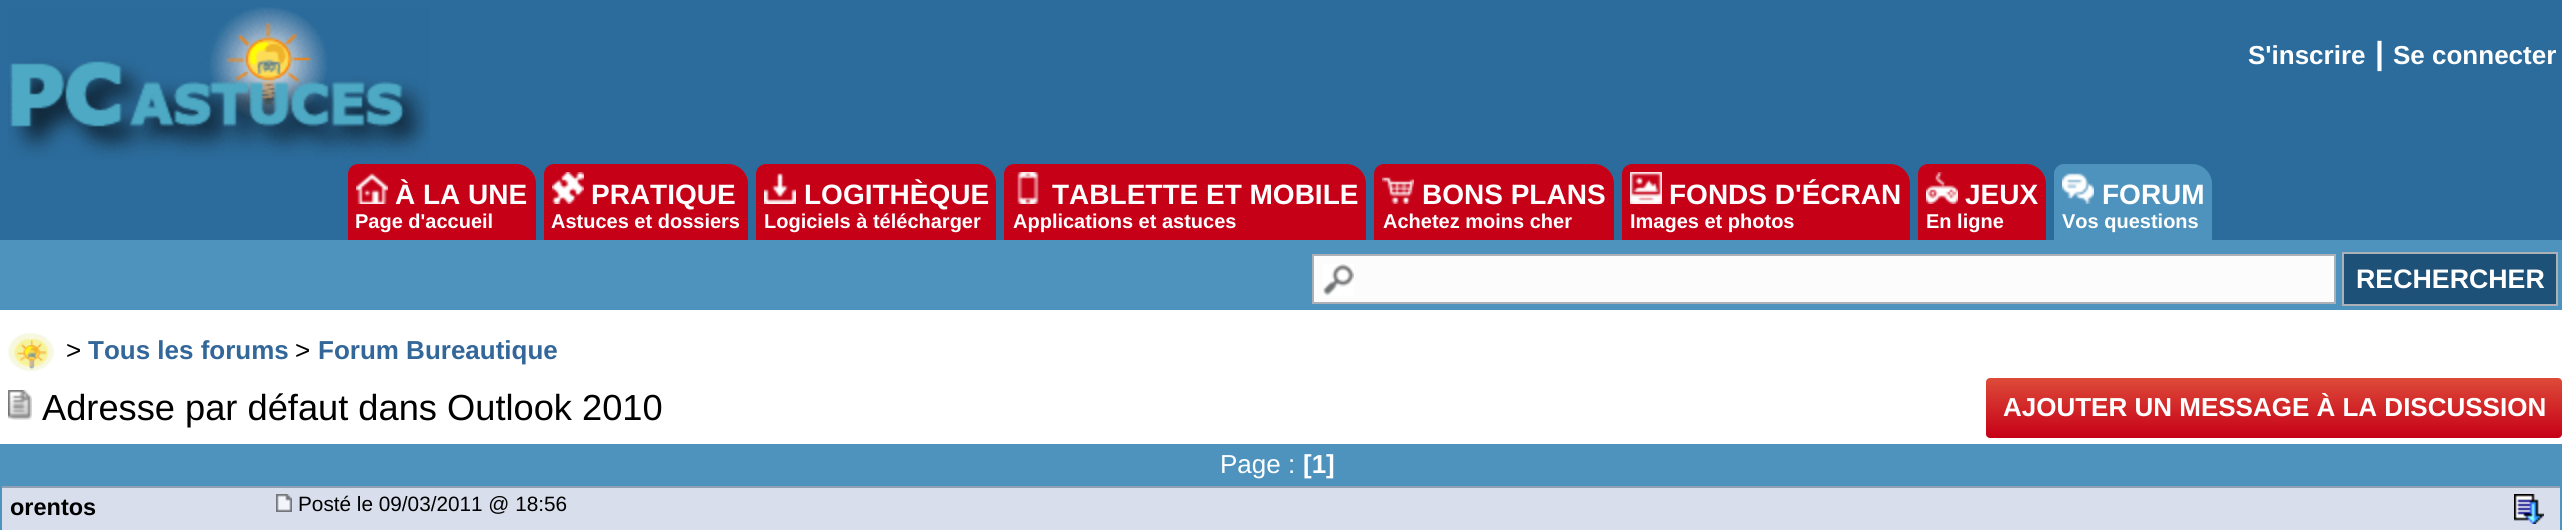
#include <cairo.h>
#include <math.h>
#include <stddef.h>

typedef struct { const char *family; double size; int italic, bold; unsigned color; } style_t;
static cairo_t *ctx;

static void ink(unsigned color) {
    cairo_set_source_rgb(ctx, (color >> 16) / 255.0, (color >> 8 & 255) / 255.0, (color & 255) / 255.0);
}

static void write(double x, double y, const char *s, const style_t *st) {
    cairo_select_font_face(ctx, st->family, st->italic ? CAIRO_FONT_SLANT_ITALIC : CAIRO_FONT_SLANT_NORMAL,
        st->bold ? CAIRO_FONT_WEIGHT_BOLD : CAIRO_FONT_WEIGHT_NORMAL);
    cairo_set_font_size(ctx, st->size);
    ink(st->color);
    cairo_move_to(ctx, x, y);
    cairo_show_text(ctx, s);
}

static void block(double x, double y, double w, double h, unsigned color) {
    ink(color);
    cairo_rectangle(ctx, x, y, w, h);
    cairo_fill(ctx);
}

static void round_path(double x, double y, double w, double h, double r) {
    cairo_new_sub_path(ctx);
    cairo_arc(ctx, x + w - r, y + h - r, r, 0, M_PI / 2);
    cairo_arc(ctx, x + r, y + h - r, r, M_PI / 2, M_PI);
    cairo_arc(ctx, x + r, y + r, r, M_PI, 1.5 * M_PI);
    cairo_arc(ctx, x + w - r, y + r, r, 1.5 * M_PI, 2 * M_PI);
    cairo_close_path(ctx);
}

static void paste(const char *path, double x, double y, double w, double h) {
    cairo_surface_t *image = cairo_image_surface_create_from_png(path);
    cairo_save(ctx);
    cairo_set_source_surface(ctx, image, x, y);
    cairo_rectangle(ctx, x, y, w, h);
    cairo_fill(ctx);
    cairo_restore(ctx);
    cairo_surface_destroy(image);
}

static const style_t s1 = {"Liberation Sans", 26, 0, 1, 0xffffff};
static const style_t s2 = {"Liberation Sans", 32, 0, 1, 0xffffff};
static const style_t s3 = {"Liberation Sans", 28, 0, 1, 0xffffff};
static const style_t s4 = {"Liberation Sans", 20, 0, 1, 0xffffff};
static const style_t s5 = {"Liberation Sans", 26.75, 0, 1, 0xffffff};
static const style_t s6 = {"Liberation Sans", 26, 0, 0, 0x000000};
static const style_t s7 = {"Liberation Sans", 26, 0, 1, 0x336699};
static const style_t s8 = {"Liberation Sans", 36.25, 0, 0, 0x000000};
static const style_t s9 = {"Liberation Sans", 26, 0, 0, 0xffffff};
static const style_t s10 = {"Liberation Sans", 23.5, 0, 1, 0x000000};
static const style_t s11 = {"Liberation Sans", 20.75, 0, 0, 0x000000};

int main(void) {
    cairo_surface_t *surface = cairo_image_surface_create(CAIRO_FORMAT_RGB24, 2562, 530);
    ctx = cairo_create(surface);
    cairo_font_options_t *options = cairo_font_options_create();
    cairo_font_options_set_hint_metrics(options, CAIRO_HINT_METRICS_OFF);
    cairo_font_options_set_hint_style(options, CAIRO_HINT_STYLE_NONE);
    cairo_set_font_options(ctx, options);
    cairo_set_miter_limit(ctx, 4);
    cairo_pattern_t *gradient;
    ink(0xffffff);
    cairo_paint(ctx);
    block(0, 0, 2562, 240, 0x2c6c9d);
    paste("pic1.png", 8, 7, 422, 153);
    write(2248, 64, "S'inscrire", &s1);
    write(2375, 64, "|", &s2);
    write(2393, 64, "Se connecter", &s1);
    ink(0xc60017);
    cairo_new_path(ctx);
    cairo_move_to(ctx, 358, 164);
    cairo_line_to(ctx, 516, 164);
    cairo_curve_to(ctx, 527, 164, 536, 173, 536, 184);
    cairo_line_to(ctx, 536, 240);
    cairo_line_to(ctx, 348, 240);
    cairo_line_to(ctx, 348, 174);
    cairo_curve_to(ctx, 348, 168.5, 352.5, 164, 358, 164);
    cairo_close_path(ctx);
    cairo_fill(ctx);
    paste("pic2.png", 356, 173, 32, 31);
    write(395, 204, "À LA UNE", &s3);
    write(355, 228, "Page d'accueil", &s4);
    ink(0xc60017);
    cairo_new_path(ctx);
    cairo_move_to(ctx, 554, 164);
    cairo_line_to(ctx, 728, 164);
    cairo_curve_to(ctx, 739, 164, 748, 173, 748, 184);
    cairo_line_to(ctx, 748, 240);
    cairo_line_to(ctx, 544, 240);
    cairo_line_to(ctx, 544, 174);
    cairo_curve_to(ctx, 544, 168.5, 548.5, 164, 554, 164);
    cairo_close_path(ctx);
    cairo_fill(ctx);
    paste("pic3.png", 552, 172, 32, 32);
    write(591, 204, "PRATIQUE", &s3);
    write(551, 228, "Astuces et dossiers", &s4);
    ink(0xc60017);
    cairo_new_path(ctx);
    cairo_move_to(ctx, 766, 164);
    cairo_line_to(ctx, 976, 164);
    cairo_curve_to(ctx, 987, 164, 996, 173, 996, 184);
    cairo_line_to(ctx, 996, 240);
    cairo_line_to(ctx, 756, 240);
    cairo_line_to(ctx, 756, 174);
    cairo_curve_to(ctx, 756, 168.5, 760.5, 164, 766, 164);
    cairo_close_path(ctx);
    cairo_fill(ctx);
    paste("pic4.png", 764, 173, 32, 31);
    write(804, 204, "LOGITHÈQUE", &s3);
    write(764, 228, "Logiciels à télécharger", &s4);
    ink(0xc60017);
    cairo_new_path(ctx);
    cairo_move_to(ctx, 1014, 164);
    cairo_line_to(ctx, 1346, 164);
    cairo_curve_to(ctx, 1357, 164, 1366, 173, 1366, 184);
    cairo_line_to(ctx, 1366, 240);
    cairo_line_to(ctx, 1004, 240);
    cairo_line_to(ctx, 1004, 174);
    cairo_curve_to(ctx, 1004, 168.5, 1008.5, 164, 1014, 164);
    cairo_close_path(ctx);
    cairo_fill(ctx);
    paste("pic5.png", 1017, 172, 22, 32);
    write(1052, 204, "TABLETTE ET MOBILE", &s3);
    write(1013, 228, "Applications et astuces", &s4);
    ink(0xc60017);
    cairo_new_path(ctx);
    cairo_move_to(ctx, 1384, 164);
    cairo_line_to(ctx, 1594, 164);
    cairo_curve_to(ctx, 1605, 164, 1614, 173, 1614, 184);
    cairo_line_to(ctx, 1614, 240);
    cairo_line_to(ctx, 1374, 240);
    cairo_line_to(ctx, 1374, 174);
    cairo_curve_to(ctx, 1374, 168.5, 1378.5, 164, 1384, 164);
    cairo_close_path(ctx);
    cairo_fill(ctx);
    paste("pic6.png", 1382, 177, 32, 27);
    write(1422, 204, "BONS PLANS", &s3);
    write(1383, 228, "Achetez moins cher", &s4);
    ink(0xc60017);
    cairo_new_path(ctx);
    cairo_move_to(ctx, 1632, 164);
    cairo_line_to(ctx, 1890, 164);
    cairo_curve_to(ctx, 1901, 164, 1910, 173, 1910, 184);
    cairo_line_to(ctx, 1910, 240);
    cairo_line_to(ctx, 1622, 240);
    cairo_line_to(ctx, 1622, 174);
    cairo_curve_to(ctx, 1622, 168.5, 1626.5, 164, 1632, 164);
    cairo_close_path(ctx);
    cairo_fill(ctx);
    paste("pic7.png", 1630, 172, 32, 32);
    write(1669, 204, "FONDS D'ÉCRAN", &s3);
    write(1630, 228, "Images et photos", &s4);
    ink(0xc60017);
    cairo_new_path(ctx);
    cairo_move_to(ctx, 1928, 164);
    cairo_line_to(ctx, 2026, 164);
    cairo_curve_to(ctx, 2037, 164, 2046, 173, 2046, 184);
    cairo_line_to(ctx, 2046, 240);
    cairo_line_to(ctx, 1918, 240);
    cairo_line_to(ctx, 1918, 174);
    cairo_curve_to(ctx, 1918, 168.5, 1922.5, 164, 1928, 164);
    cairo_close_path(ctx);
    cairo_fill(ctx);
    paste("pic8.png", 1926, 172, 32, 32);
    write(1965, 204, "JEUX", &s3);
    write(1926, 228, "En ligne", &s4);
    ink(0x4e93bd);
    cairo_new_path(ctx);
    cairo_move_to(ctx, 2064, 164);
    cairo_line_to(ctx, 2192, 164);
    cairo_curve_to(ctx, 2203, 164, 2212, 173, 2212, 184);
    cairo_line_to(ctx, 2212, 240);
    cairo_line_to(ctx, 2054, 240);
    cairo_line_to(ctx, 2054, 174);
    cairo_curve_to(ctx, 2054, 168.5, 2058.5, 164, 2064, 164);
    cairo_close_path(ctx);
    cairo_fill(ctx);
    paste("pic9.png", 2062, 173, 32, 31);
    write(2102, 204, "FORUM", &s3);
    write(2062, 228, "Vos questions", &s4);
    block(0, 240, 2562, 70, 0x4e93bd);
    block(1314, 256, 1020, 46, 0xfcfcfc);
    paste("pic10.png", 1323, 264, 31, 32);
    cairo_rectangle(ctx, 1313, 255, 1022, 48);
    ink(0xacb1b7);
    cairo_stroke(ctx);
    ink(0x1e5178);
    cairo_rectangle(ctx, 2343, 253, 214, 52);
    cairo_fill_preserve(ctx);
    ink(0xacb1b7);
    cairo_stroke(ctx);
    write(2356, 288, "RECHERCHER", &s5);
    paste("pic11.png", 8, 333, 46, 39);
    write(66, 359, ">", &s6);
    write(88, 359, "Tous les forums", &s7);
    write(295, 359, ">", &s6);
    write(318, 359, "Forum Bureautique", &s7);
    paste("pic12.png", 8, 390, 24, 30);
    write(42, 420, "Adresse par défaut dans Outlook 2010", &s8);
    gradient = cairo_pattern_create_linear(2274, 378, 2274, 438);
    cairo_pattern_add_color_stop_rgba(gradient, 0, 0.867, 0.294, 0.224, 1);
    cairo_pattern_add_color_stop_rgba(gradient, 1, 0.776, 0, 0.09, 1);
    cairo_set_source(ctx, gradient);
    cairo_pattern_destroy(gradient);
    round_path(1986, 378, 576, 60, 4);
    cairo_fill(ctx);
    write(2003, 416, "AJOUTER UN MESSAGE À LA DISCUSSION", &s1);
    block(0, 444, 2562, 42, 0x4e93bd);
    write(1220, 473, "Page :", &s9);
    write(1303, 473, "[1]", &s1);
    block(2, 488, 2558, 42, 0xd8deeb);
    block(0, 486, 2562, 2, 0x90a0b0);
    block(2560, 486, 2, 44, 0x4e93bd);
    block(0, 486, 2, 44, 0x4e93bd);
    write(10, 515, "orentos", &s10);
    paste("pic13.png", 276, 494, 16, 18);
    write(298, 511, "Posté le 09/03/2011 @ 18:56", &s11);
    paste("pic14.png", 2514, 494, 30, 30);
    cairo_surface_write_to_png(surface, "screenshot.png");
    cairo_font_options_destroy(options);
    cairo_destroy(ctx);
    cairo_surface_destroy(surface);
    return 0;
}
